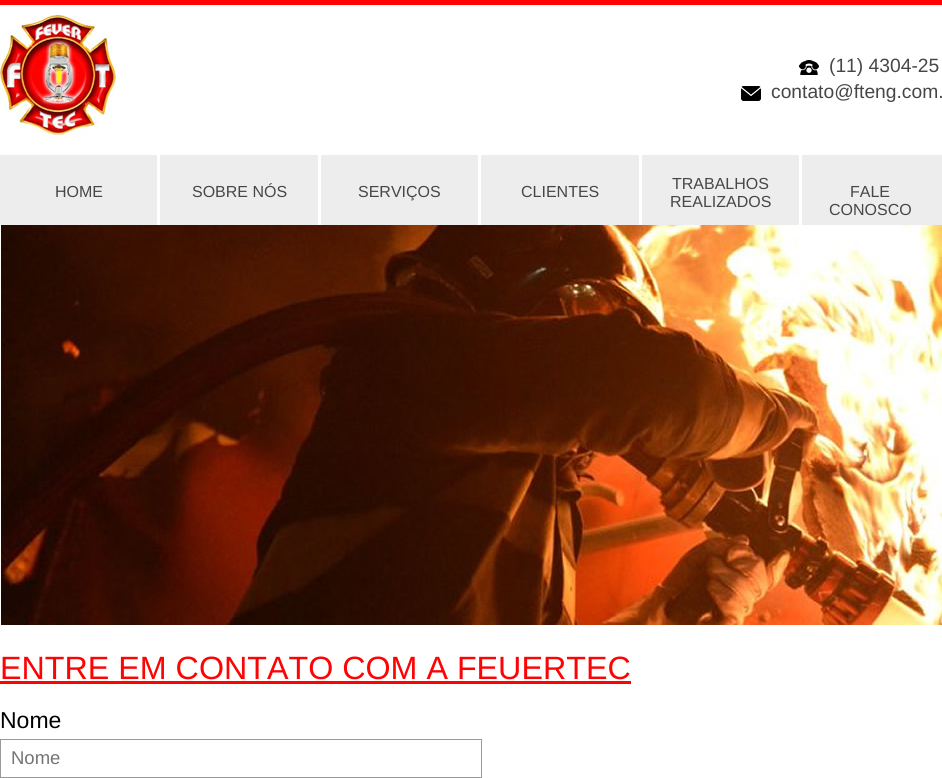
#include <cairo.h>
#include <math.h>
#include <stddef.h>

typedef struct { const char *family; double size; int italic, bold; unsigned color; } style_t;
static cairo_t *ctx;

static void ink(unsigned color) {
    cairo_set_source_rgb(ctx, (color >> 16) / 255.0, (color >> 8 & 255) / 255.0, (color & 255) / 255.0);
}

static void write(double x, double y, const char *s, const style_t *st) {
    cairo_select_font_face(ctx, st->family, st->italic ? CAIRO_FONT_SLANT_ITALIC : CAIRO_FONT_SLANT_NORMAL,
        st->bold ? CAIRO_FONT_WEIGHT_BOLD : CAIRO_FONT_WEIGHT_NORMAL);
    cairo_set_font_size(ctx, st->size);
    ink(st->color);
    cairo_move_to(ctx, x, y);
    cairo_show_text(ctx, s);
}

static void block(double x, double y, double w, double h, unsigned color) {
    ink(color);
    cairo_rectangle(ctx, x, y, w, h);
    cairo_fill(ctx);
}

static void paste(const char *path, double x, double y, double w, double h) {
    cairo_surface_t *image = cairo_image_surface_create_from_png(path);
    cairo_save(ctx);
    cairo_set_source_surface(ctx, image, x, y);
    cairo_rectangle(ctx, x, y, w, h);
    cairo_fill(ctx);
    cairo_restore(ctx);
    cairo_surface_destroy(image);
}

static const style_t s1 = {"Liberation Sans", 19.25, 0, 0, 0x474747};
static const style_t s2 = {"Liberation Sans", 16, 0, 0, 0x474747};
static const style_t s3 = {"Liberation Sans", 32.25, 0, 0, 0xff0204};
static const style_t s4 = {"Liberation Sans", 23, 0, 0, 0x000000};
static const style_t s5 = {"Liberation Sans", 18.5, 0, 0, 0x757575};

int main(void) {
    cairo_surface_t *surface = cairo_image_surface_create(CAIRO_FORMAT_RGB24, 942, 778);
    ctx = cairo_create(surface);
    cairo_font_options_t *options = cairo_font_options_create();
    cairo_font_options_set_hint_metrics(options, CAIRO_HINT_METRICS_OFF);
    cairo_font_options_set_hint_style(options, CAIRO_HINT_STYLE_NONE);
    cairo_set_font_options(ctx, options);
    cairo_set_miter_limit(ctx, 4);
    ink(0xffffff);
    cairo_paint(ctx);
    block(0, 0, 942, 5, 0xff0204);
    paste("pic1.png", 0, 15, 116, 120);
    paste("pic2.png", 799, 60, 20, 15);
    write(829, 72, "(11) 4304-25", &s1);
    paste("pic3.png", 741, 86, 20, 15);
    write(771, 98, "contato@fteng.com.", &s1);
    block(0, 155, 942, 70, 0xededed);
    block(157, 155, 3, 70, 0xffffff);
    write(55, 197, "HOME", &s2);
    block(318, 155, 3, 70, 0xffffff);
    write(192, 197, "SOBRE NÓS", &s2);
    block(478, 155, 3, 70, 0xffffff);
    write(358, 197, "SERVIÇOS", &s2);
    block(639, 155, 3, 70, 0xffffff);
    write(521, 197, "CLIENTES", &s2);
    block(799, 155, 3, 70, 0xffffff);
    write(672, 189, "TRABALHOS", &s2);
    write(670, 207, "REALIZADOS", &s2);
    write(850, 197, "FALE", &s2);
    write(829, 215, "CONOSCO", &s2);
    paste("pic4.png", 0, 225, 942, 400);
    write(0, 679, "ENTRE EM CONTATO COM A FEUERTEC", &s3);
    block(0, 681, 631, 3, 0xff0204);
    write(0, 728, "Nome", &s4);
    cairo_rectangle(ctx, 0.5, 739.5, 481, 38);
    ink(0x999999);
    cairo_set_line_width(ctx, 1);
    cairo_stroke(ctx);
    write(11, 764, "Nome", &s5);
    cairo_surface_write_to_png(surface, "screenshot.png");
    cairo_font_options_destroy(options);
    cairo_destroy(ctx);
    cairo_surface_destroy(surface);
    return 0;
}
